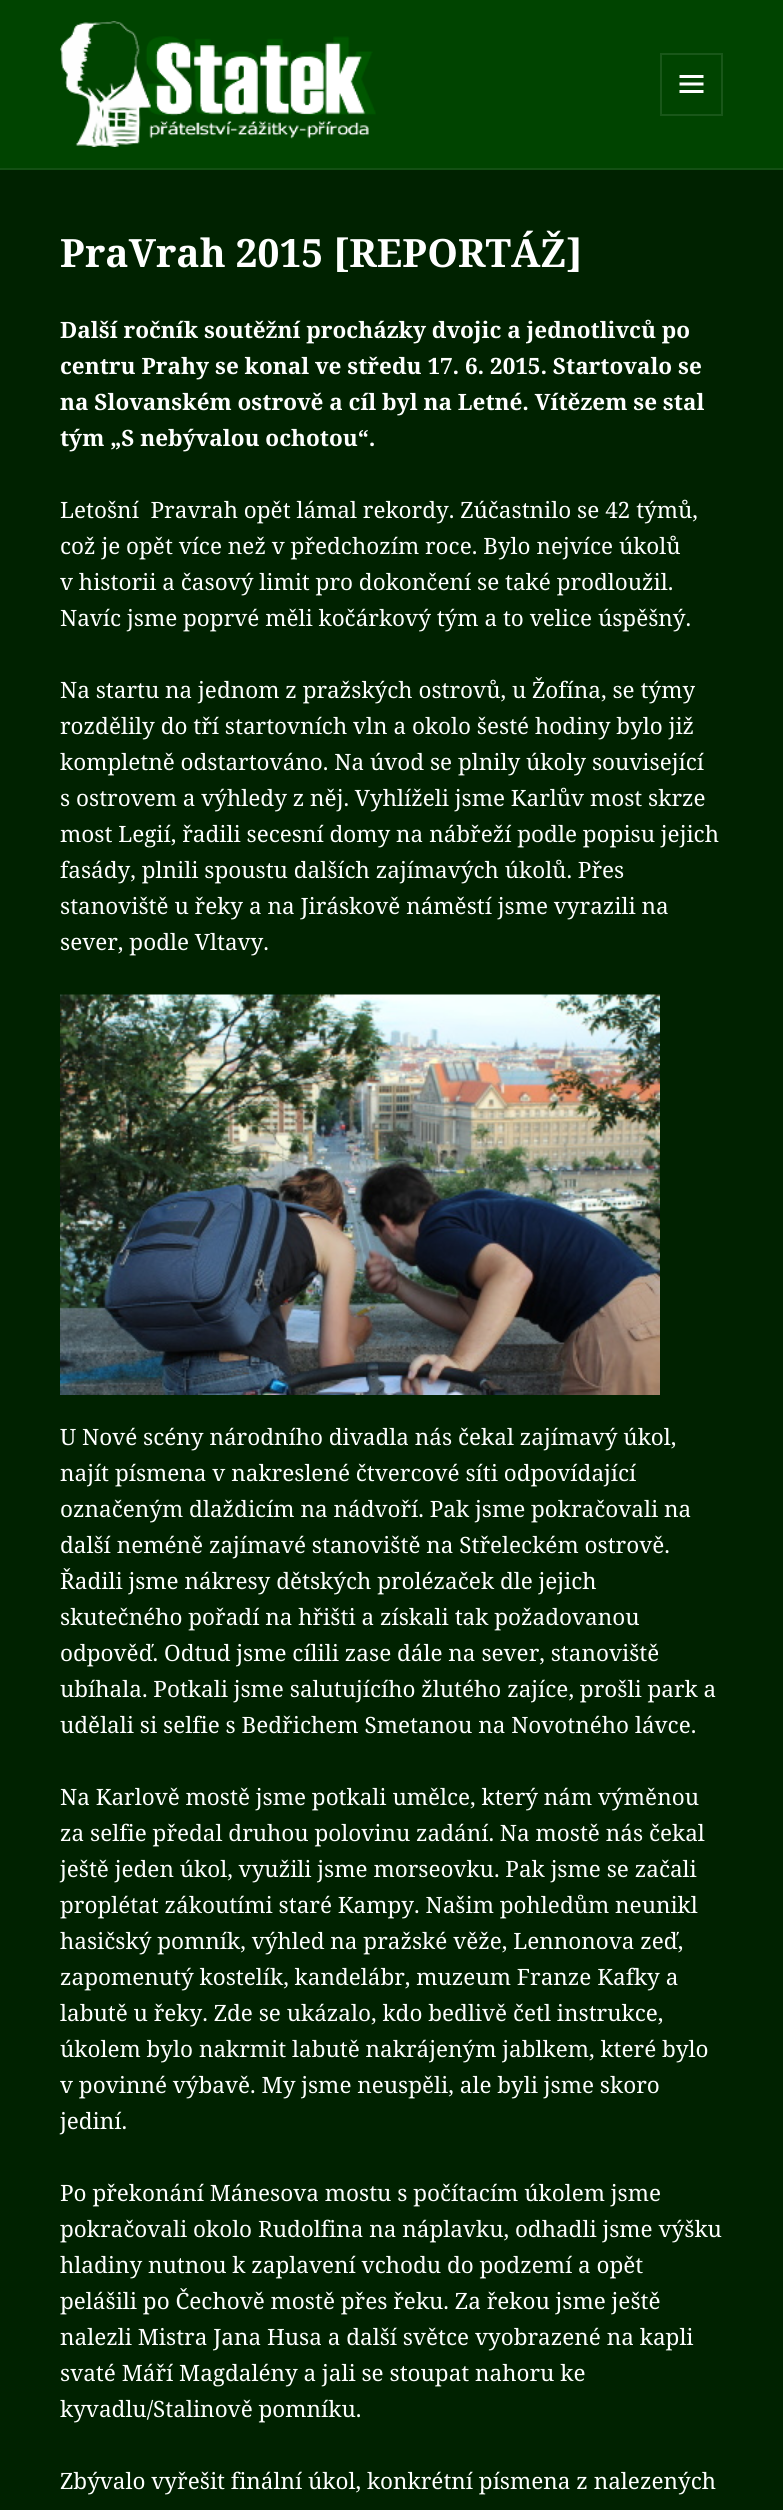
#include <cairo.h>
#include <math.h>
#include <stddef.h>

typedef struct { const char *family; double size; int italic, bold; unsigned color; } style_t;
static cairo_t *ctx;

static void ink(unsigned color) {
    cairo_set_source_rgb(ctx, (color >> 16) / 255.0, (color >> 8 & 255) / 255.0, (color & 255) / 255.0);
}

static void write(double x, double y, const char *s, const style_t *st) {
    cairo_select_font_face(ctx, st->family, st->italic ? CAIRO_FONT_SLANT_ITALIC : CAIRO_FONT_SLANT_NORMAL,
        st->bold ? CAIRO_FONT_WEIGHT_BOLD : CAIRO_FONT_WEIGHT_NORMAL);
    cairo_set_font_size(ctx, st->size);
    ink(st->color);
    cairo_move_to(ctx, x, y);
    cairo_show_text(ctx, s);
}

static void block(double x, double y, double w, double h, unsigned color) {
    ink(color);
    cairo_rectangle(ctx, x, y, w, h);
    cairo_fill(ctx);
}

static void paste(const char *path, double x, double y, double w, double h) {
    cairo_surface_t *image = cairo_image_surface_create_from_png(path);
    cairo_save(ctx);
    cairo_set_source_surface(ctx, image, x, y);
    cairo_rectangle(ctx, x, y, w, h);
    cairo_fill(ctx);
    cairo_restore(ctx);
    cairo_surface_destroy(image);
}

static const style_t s1 = {"Noto Serif", 39, 0, 1, 0xffffff};
static const style_t s2 = {"Noto Serif", 22.5, 0, 1, 0xffffff};
static const style_t s3 = {"Noto Serif", 22.5, 0, 0, 0xffffff};

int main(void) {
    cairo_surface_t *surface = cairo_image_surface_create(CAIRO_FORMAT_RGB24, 783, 2510);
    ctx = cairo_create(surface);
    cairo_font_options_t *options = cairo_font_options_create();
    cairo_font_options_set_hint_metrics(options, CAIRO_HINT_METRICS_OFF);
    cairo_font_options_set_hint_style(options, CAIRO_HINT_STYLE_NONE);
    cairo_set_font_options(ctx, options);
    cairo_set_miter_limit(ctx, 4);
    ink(0x004400);
    cairo_paint(ctx);
    block(0, 168, 783, 2, 0x135013);
    paste("pic1.png", 60, 21, 316, 126);
    cairo_rectangle(ctx, 661, 54, 61, 61);
    ink(0x195719);
    cairo_stroke(ctx);
    paste("pic2.png", 679, 75, 25, 18);
    block(0, 170, 783, 2340, 0x002200);
    write(60, 267, "PraVrah 2015 [REPORTÁŽ]", &s1);
    write(60, 338, "Další ročník soutěžní procházky dvojic a jednotlivců po", &s2);
    write(60, 374, "centru Prahy se konal ve středu 17. 6. 2015. Startovalo se", &s2);
    write(60, 410, "na Slovanském ostrově a cíl byl na Letné. Vítězem se stal", &s2);
    write(60, 446, "tým „S nebývalou ochotou“.", &s2);
    write(60, 518, "Letošní  Pravrah opět lámal rekordy. Zúčastnilo se 42 týmů,", &s3);
    write(60, 554, "což je opět více než v předchozím roce. Bylo nejvíce úkolů", &s3);
    write(60, 590, "v historii a časový limit pro dokončení se také prodloužil.", &s3);
    write(60, 626, "Navíc jsme poprvé měli kočárkový tým a to velice úspěšný.", &s3);
    write(60, 698, "Na startu na jednom z pražských ostrovů, u Žofína, se týmy", &s3);
    write(60, 734, "rozdělily do tří startovních vln a okolo šesté hodiny bylo již", &s3);
    write(60, 770, "kompletně odstartováno. Na úvod se plnily úkoly související", &s3);
    write(60, 806, "s ostrovem a výhledy z něj. Vyhlíželi jsme Karlův most skrze", &s3);
    write(60, 842, "most Legií, řadili secesní domy na nábřeží podle popisu jejich", &s3);
    write(60, 878, "fasády, plnili spoustu dalších zajímavých úkolů. Přes", &s3);
    write(60, 914, "stanoviště u řeky a na Jiráskově náměstí jsme vyrazili na", &s3);
    write(60, 950, "sever, podle Vltavy.", &s3);
    paste("pic3.png", 60, 994, 600, 401);
    write(60, 1445, "U Nové scény národního divadla nás čekal zajímavý úkol,", &s3);
    write(60, 1481, "najít písmena v nakreslené čtvercové síti odpovídající", &s3);
    write(60, 1517, "označeným dlaždicím na nádvoří. Pak jsme pokračovali na", &s3);
    write(60, 1553, "další neméně zajímavé stanoviště na Střeleckém ostrově.", &s3);
    write(60, 1589, "Řadili jsme nákresy dětských prolézaček dle jejich", &s3);
    write(60, 1625, "skutečného pořadí na hřišti a získali tak požadovanou", &s3);
    write(60, 1661, "odpověď. Odtud jsme cílili zase dále na sever, stanoviště", &s3);
    write(60, 1697, "ubíhala. Potkali jsme salutujícího žlutého zajíce, prošli park a", &s3);
    write(60, 1733, "udělali si selfie s Bedřichem Smetanou na Novotného lávce.", &s3);
    write(60, 1805, "Na Karlově mostě jsme potkali umělce, který nám výměnou", &s3);
    write(60, 1841, "za selfie předal druhou polovinu zadání. Na mostě nás čekal", &s3);
    write(60, 1877, "ještě jeden úkol, využili jsme morseovku. Pak jsme se začali", &s3);
    write(60, 1913, "proplétat zákoutími staré Kampy. Našim pohledům neunikl", &s3);
    write(60, 1949, "hasičský pomník, výhled na pražské věže, Lennonova zeď,", &s3);
    write(60, 1985, "zapomenutý kostelík, kandelábr, muzeum Franze Kafky a", &s3);
    write(60, 2021, "labutě u řeky. Zde se ukázalo, kdo bedlivě četl instrukce,", &s3);
    write(60, 2057, "úkolem bylo nakrmit labutě nakrájeným jablkem, které bylo", &s3);
    write(60, 2093, "v povinné výbavě. My jsme neuspěli, ale byli jsme skoro", &s3);
    write(60, 2129, "jediní.", &s3);
    write(60, 2201, "Po překonání Mánesova mostu s počítacím úkolem jsme", &s3);
    write(60, 2237, "pokračovali okolo Rudolfina na náplavku, odhadli jsme výšku", &s3);
    write(60, 2273, "hladiny nutnou k zaplavení vchodu do podzemí a opět", &s3);
    write(60, 2309, "pelášili po Čechově mostě přes řeku. Za řekou jsme ještě", &s3);
    write(60, 2345, "nalezli Mistra Jana Husa a další světce vyobrazené na kapli", &s3);
    write(60, 2381, "svaté Máří Magdalény a jali se stoupat nahoru ke", &s3);
    write(60, 2417, "kyvadlu/Stalinově pomníku.", &s3);
    write(60, 2489, "Zbývalo vyřešit finální úkol, konkrétní písmena z nalezených", &s3);
    cairo_surface_write_to_png(surface, "screenshot.png");
    cairo_font_options_destroy(options);
    cairo_destroy(ctx);
    cairo_surface_destroy(surface);
    return 0;
}
